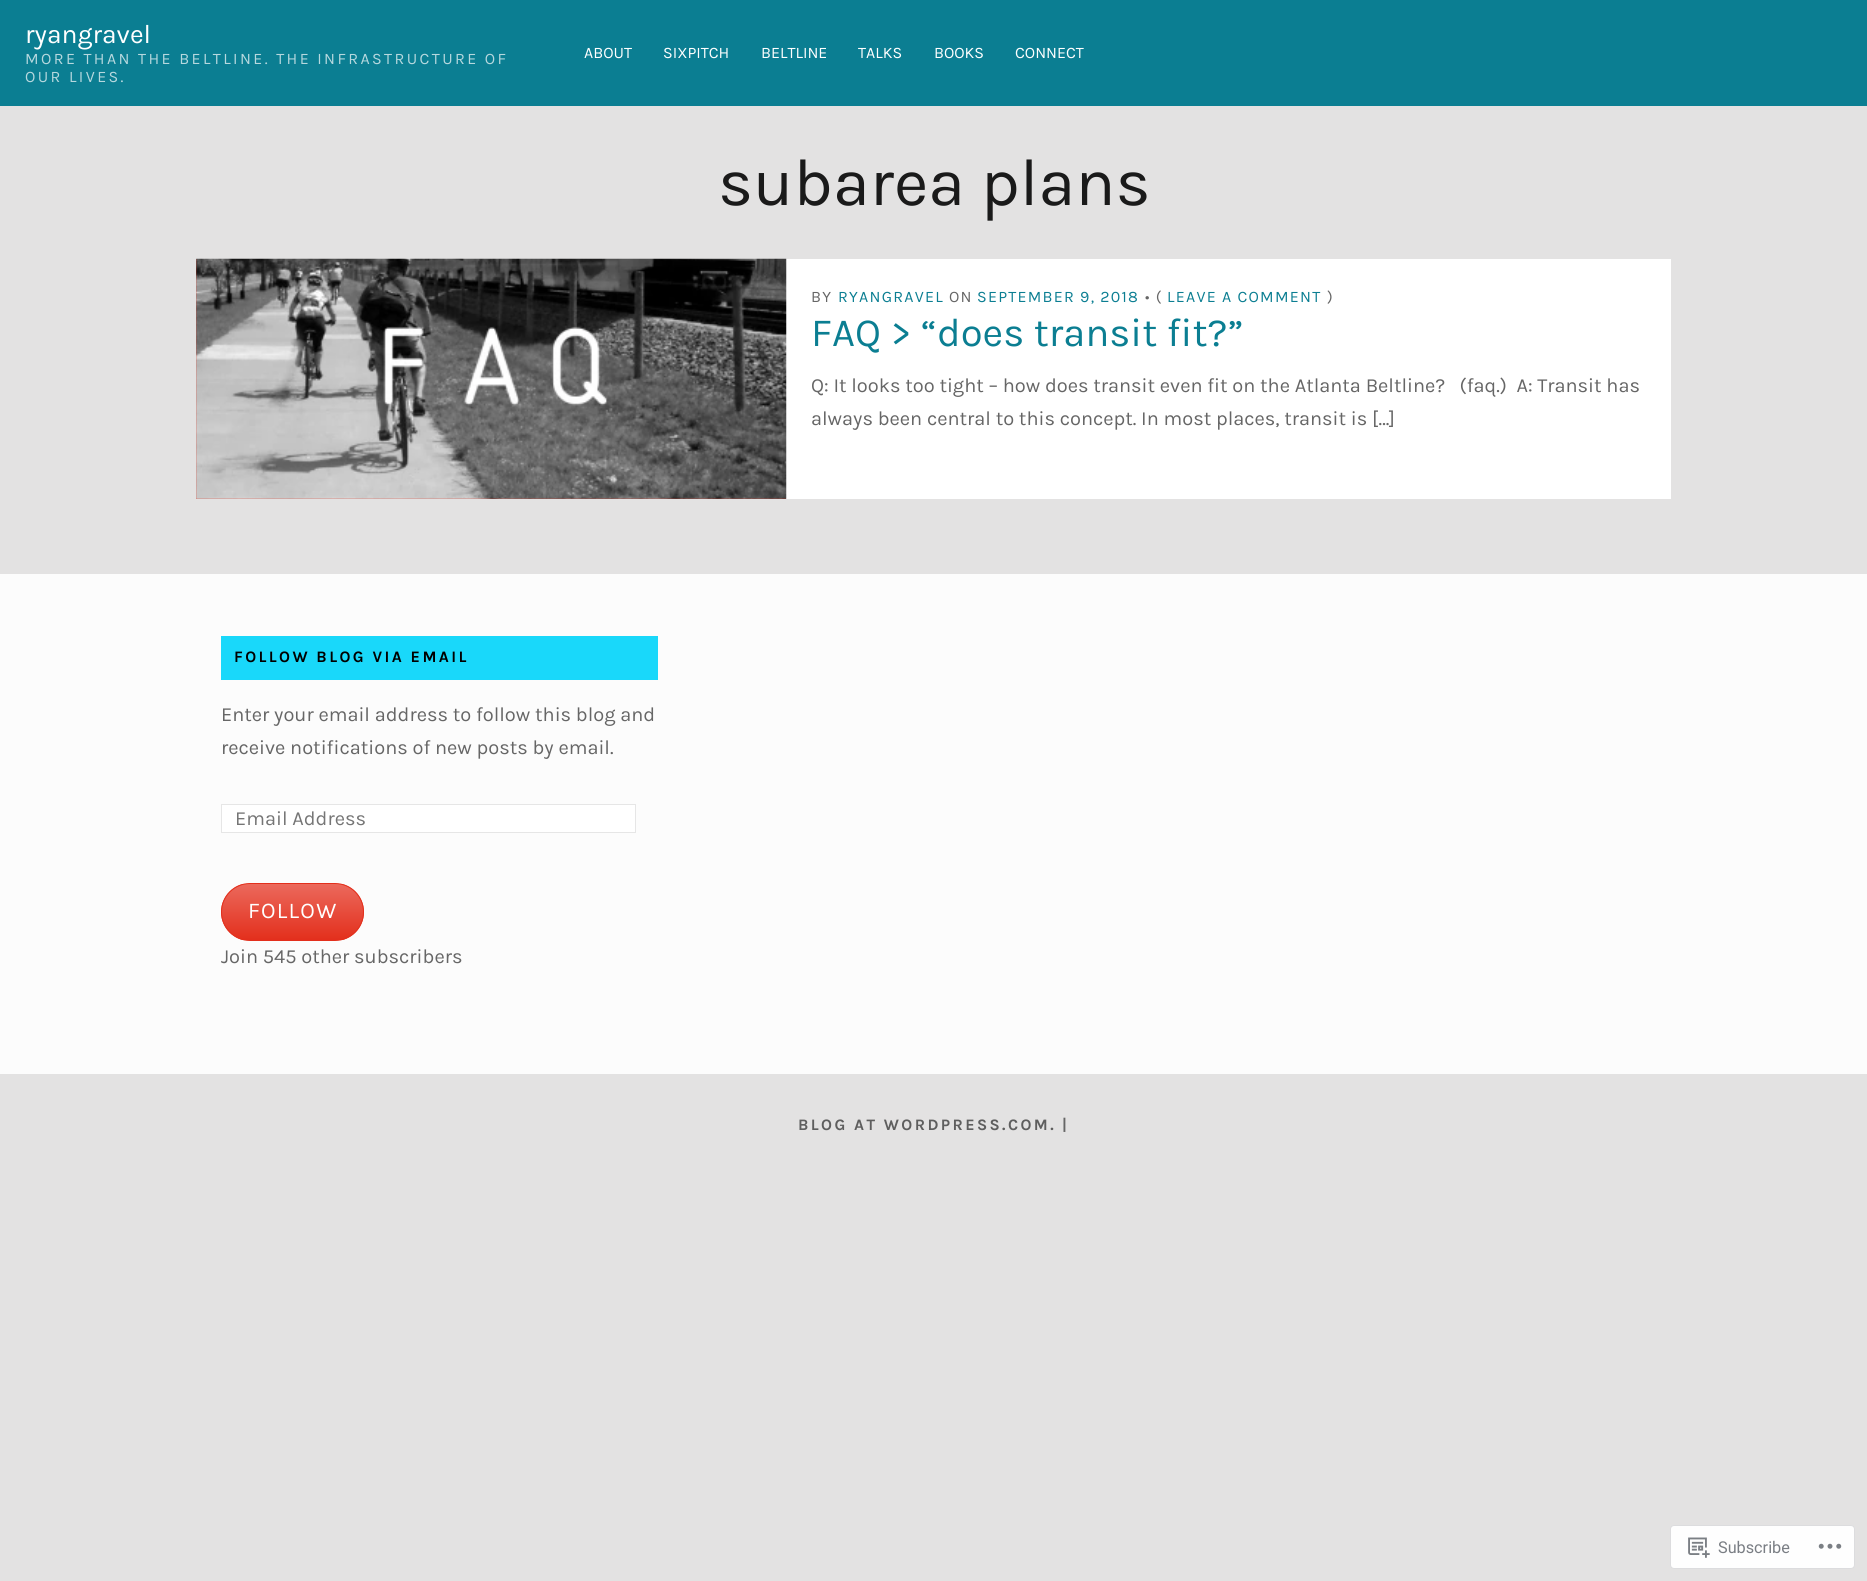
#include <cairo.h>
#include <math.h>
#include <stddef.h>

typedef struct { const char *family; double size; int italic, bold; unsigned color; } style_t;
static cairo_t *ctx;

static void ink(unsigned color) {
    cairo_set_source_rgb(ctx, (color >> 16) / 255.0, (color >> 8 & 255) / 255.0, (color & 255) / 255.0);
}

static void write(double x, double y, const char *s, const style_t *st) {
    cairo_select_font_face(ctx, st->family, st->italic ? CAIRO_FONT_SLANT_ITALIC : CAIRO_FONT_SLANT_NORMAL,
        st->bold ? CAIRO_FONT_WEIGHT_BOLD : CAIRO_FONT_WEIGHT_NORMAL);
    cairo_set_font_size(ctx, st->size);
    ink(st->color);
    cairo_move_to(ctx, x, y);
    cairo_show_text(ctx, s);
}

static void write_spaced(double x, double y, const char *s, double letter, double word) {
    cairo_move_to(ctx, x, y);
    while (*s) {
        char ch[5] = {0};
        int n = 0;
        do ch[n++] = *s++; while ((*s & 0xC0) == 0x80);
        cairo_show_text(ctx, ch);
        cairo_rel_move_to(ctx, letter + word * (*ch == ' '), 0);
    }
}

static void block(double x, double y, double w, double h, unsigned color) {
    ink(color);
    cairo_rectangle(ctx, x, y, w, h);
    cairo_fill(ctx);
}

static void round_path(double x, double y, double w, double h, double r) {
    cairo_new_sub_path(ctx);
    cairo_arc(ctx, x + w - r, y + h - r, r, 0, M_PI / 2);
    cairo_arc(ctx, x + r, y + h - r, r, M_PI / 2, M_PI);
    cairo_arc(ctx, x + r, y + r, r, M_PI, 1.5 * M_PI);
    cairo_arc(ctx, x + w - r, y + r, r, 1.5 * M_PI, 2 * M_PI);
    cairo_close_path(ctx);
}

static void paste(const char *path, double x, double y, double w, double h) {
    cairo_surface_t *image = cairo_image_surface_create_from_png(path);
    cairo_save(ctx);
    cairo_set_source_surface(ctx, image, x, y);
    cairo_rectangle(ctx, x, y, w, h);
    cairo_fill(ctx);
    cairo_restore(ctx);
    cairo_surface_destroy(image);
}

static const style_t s1 = {"Karla", 26.5, 0, 0, 0xffffff};
static const style_t s2 = {"Karla", 16, 0, 0, 0xffffff};
static const style_t s3 = {"Karla", 66.75, 0, 0, 0x1a1a1a};
static const style_t s4 = {"Karla", 40, 0, 0, 0x0b7e92};
static const style_t s5 = {"Karla", 20, 0, 0, 0x666666};
static const style_t s6 = {"Karla", 20, 0, 0, 0x757575};
static const style_t s7 = {"Roboto", 16.25, 0, 0, 0x7a7e84};

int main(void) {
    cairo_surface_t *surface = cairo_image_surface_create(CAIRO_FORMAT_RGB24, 1867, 1581);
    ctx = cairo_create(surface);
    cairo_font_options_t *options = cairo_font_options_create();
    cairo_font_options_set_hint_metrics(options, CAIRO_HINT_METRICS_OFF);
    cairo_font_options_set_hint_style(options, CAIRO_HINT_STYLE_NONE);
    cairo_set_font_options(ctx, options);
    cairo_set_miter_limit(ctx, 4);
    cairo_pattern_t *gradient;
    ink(0xe3e2e2);
    cairo_paint(ctx);
    block(0, 0, 1867, 106, 0x0b7e92);
    write(25, 43, "ryangravel", &s1);
    cairo_set_font_size(ctx, 16);
    ink(0xb6d8de);
    write_spaced(25, 64, "MORE THAN THE BELTLINE. THE INFRASTRUCTURE OF", 2.4, 0);
    write_spaced(25, 82, "OUR LIVES.", 2.4, 0);
    write(584, 58, "ABOUT", &s2);
    write(663, 58, "SIXPITCH", &s2);
    write(761, 58, "BELTLINE", &s2);
    write(858, 58, "TALKS", &s2);
    write(934, 58, "BOOKS", &s2);
    write(1015, 58, "CONNECT", &s2);
    write(718, 205, "subarea plans", &s3);
    block(786, 259, 885, 240, 0xffffff);
    block(196, 259, 590, 240, 0xe74c3c);
    paste("pic1.png", 196, 258, 591, 241);
    cairo_set_font_size(ctx, 16);
    ink(0x666666);
    write_spaced(811, 302, "BY", 1.25, 0);
    ink(0x0b7e92);
    write_spaced(838, 302, "RYANGRAVEL", 1.25, 0);
    ink(0x666666);
    write_spaced(949, 302, "ON", 1.25, 0);
    ink(0x0b7e92);
    write_spaced(977, 302, "SEPTEMBER 9, 2018", 1.25, 0);
    ink(0x666666);
    write_spaced(1145, 302, "• (", 1.25, 0);
    ink(0x0b7e92);
    write_spaced(1167, 302, "LEAVE A COMMENT", 1.25, 0);
    ink(0x666666);
    write_spaced(1327, 302, ")", 1.25, 0);
    write(811, 346, "FAQ > “does transit fit?”", &s4);
    write(811, 392, "Q: It looks too tight – how does transit even fit on the Atlanta Beltline?   (faq.)  A: Transit has", &s5);
    write(811, 425, "always been central to this concept. In most places, transit is […]", &s5);
    block(0, 574, 1867, 500, 0xfcfcfc);
    block(221, 636, 437, 44, 0x19d8fa);
    cairo_select_font_face(ctx, "Karla", CAIRO_FONT_SLANT_NORMAL, CAIRO_FONT_WEIGHT_BOLD);
    cairo_set_font_size(ctx, 16);
    ink(0x000000);
    write_spaced(234, 662, "FOLLOW BLOG VIA EMAIL", 2.4, 0);
    write(221, 721, "Enter your email address to follow this blog and", &s5);
    write(221, 754, "receive notifications of new posts by email.", &s5);
    ink(0xffffff);
    cairo_rectangle(ctx, 221.5, 804.5, 414, 28);
    cairo_fill_preserve(ctx);
    ink(0xe6e6e6);
    cairo_set_line_width(ctx, 1);
    cairo_stroke(ctx);
    write(235, 825, "Email Address", &s6);
    cairo_save(ctx);
    round_path(221, 883, 143, 58, 29);
    cairo_clip(ctx);
    gradient = cairo_pattern_create_linear(293, 884, 293, 940);
    cairo_pattern_add_color_stop_rgba(gradient, 0, 0.922, 0.412, 0.361, 1);
    cairo_pattern_add_color_stop_rgba(gradient, 1, 0.89, 0.184, 0.11, 1);
    cairo_set_source(ctx, gradient);
    cairo_pattern_destroy(gradient);
    cairo_rectangle(ctx, 221, 884, 143, 56);
    cairo_fill(ctx);
    cairo_restore(ctx);
    round_path(221.5, 883.5, 142, 57, 28.5);
    ink(0xe32f1c);
    cairo_stroke(ctx);
    cairo_set_font_size(ctx, 22.5);
    ink(0xffffff);
    write_spaced(248, 918, "FOLLOW", 1.25, 0);
    write(221, 963, "Join 545 other subscribers", &s5);
    cairo_select_font_face(ctx, "Karla", CAIRO_FONT_SLANT_NORMAL, CAIRO_FONT_WEIGHT_BOLD);
    cairo_set_font_size(ctx, 16);
    ink(0x5e5e5e);
    write_spaced(798, 1130, "BLOG AT WORDPRESS.COM.", 2.4, 0);
    ink(0x666666);
    write_spaced(1062, 1130, "|", 2.4, 0);
    ink(0xfefefe);
    round_path(1670.5, 1525.5, 184, 43, 3.5);
    cairo_fill_preserve(ctx);
    ink(0xdcdcde);
    cairo_stroke(ctx);
    paste("pic2.png", 1688, 1537, 22, 21);
    write(1718, 1553, "Subscribe", &s7);
    paste("pic3.png", 1818, 1543, 24, 6);
    cairo_surface_write_to_png(surface, "screenshot.png");
    cairo_font_options_destroy(options);
    cairo_destroy(ctx);
    cairo_surface_destroy(surface);
    return 0;
}
